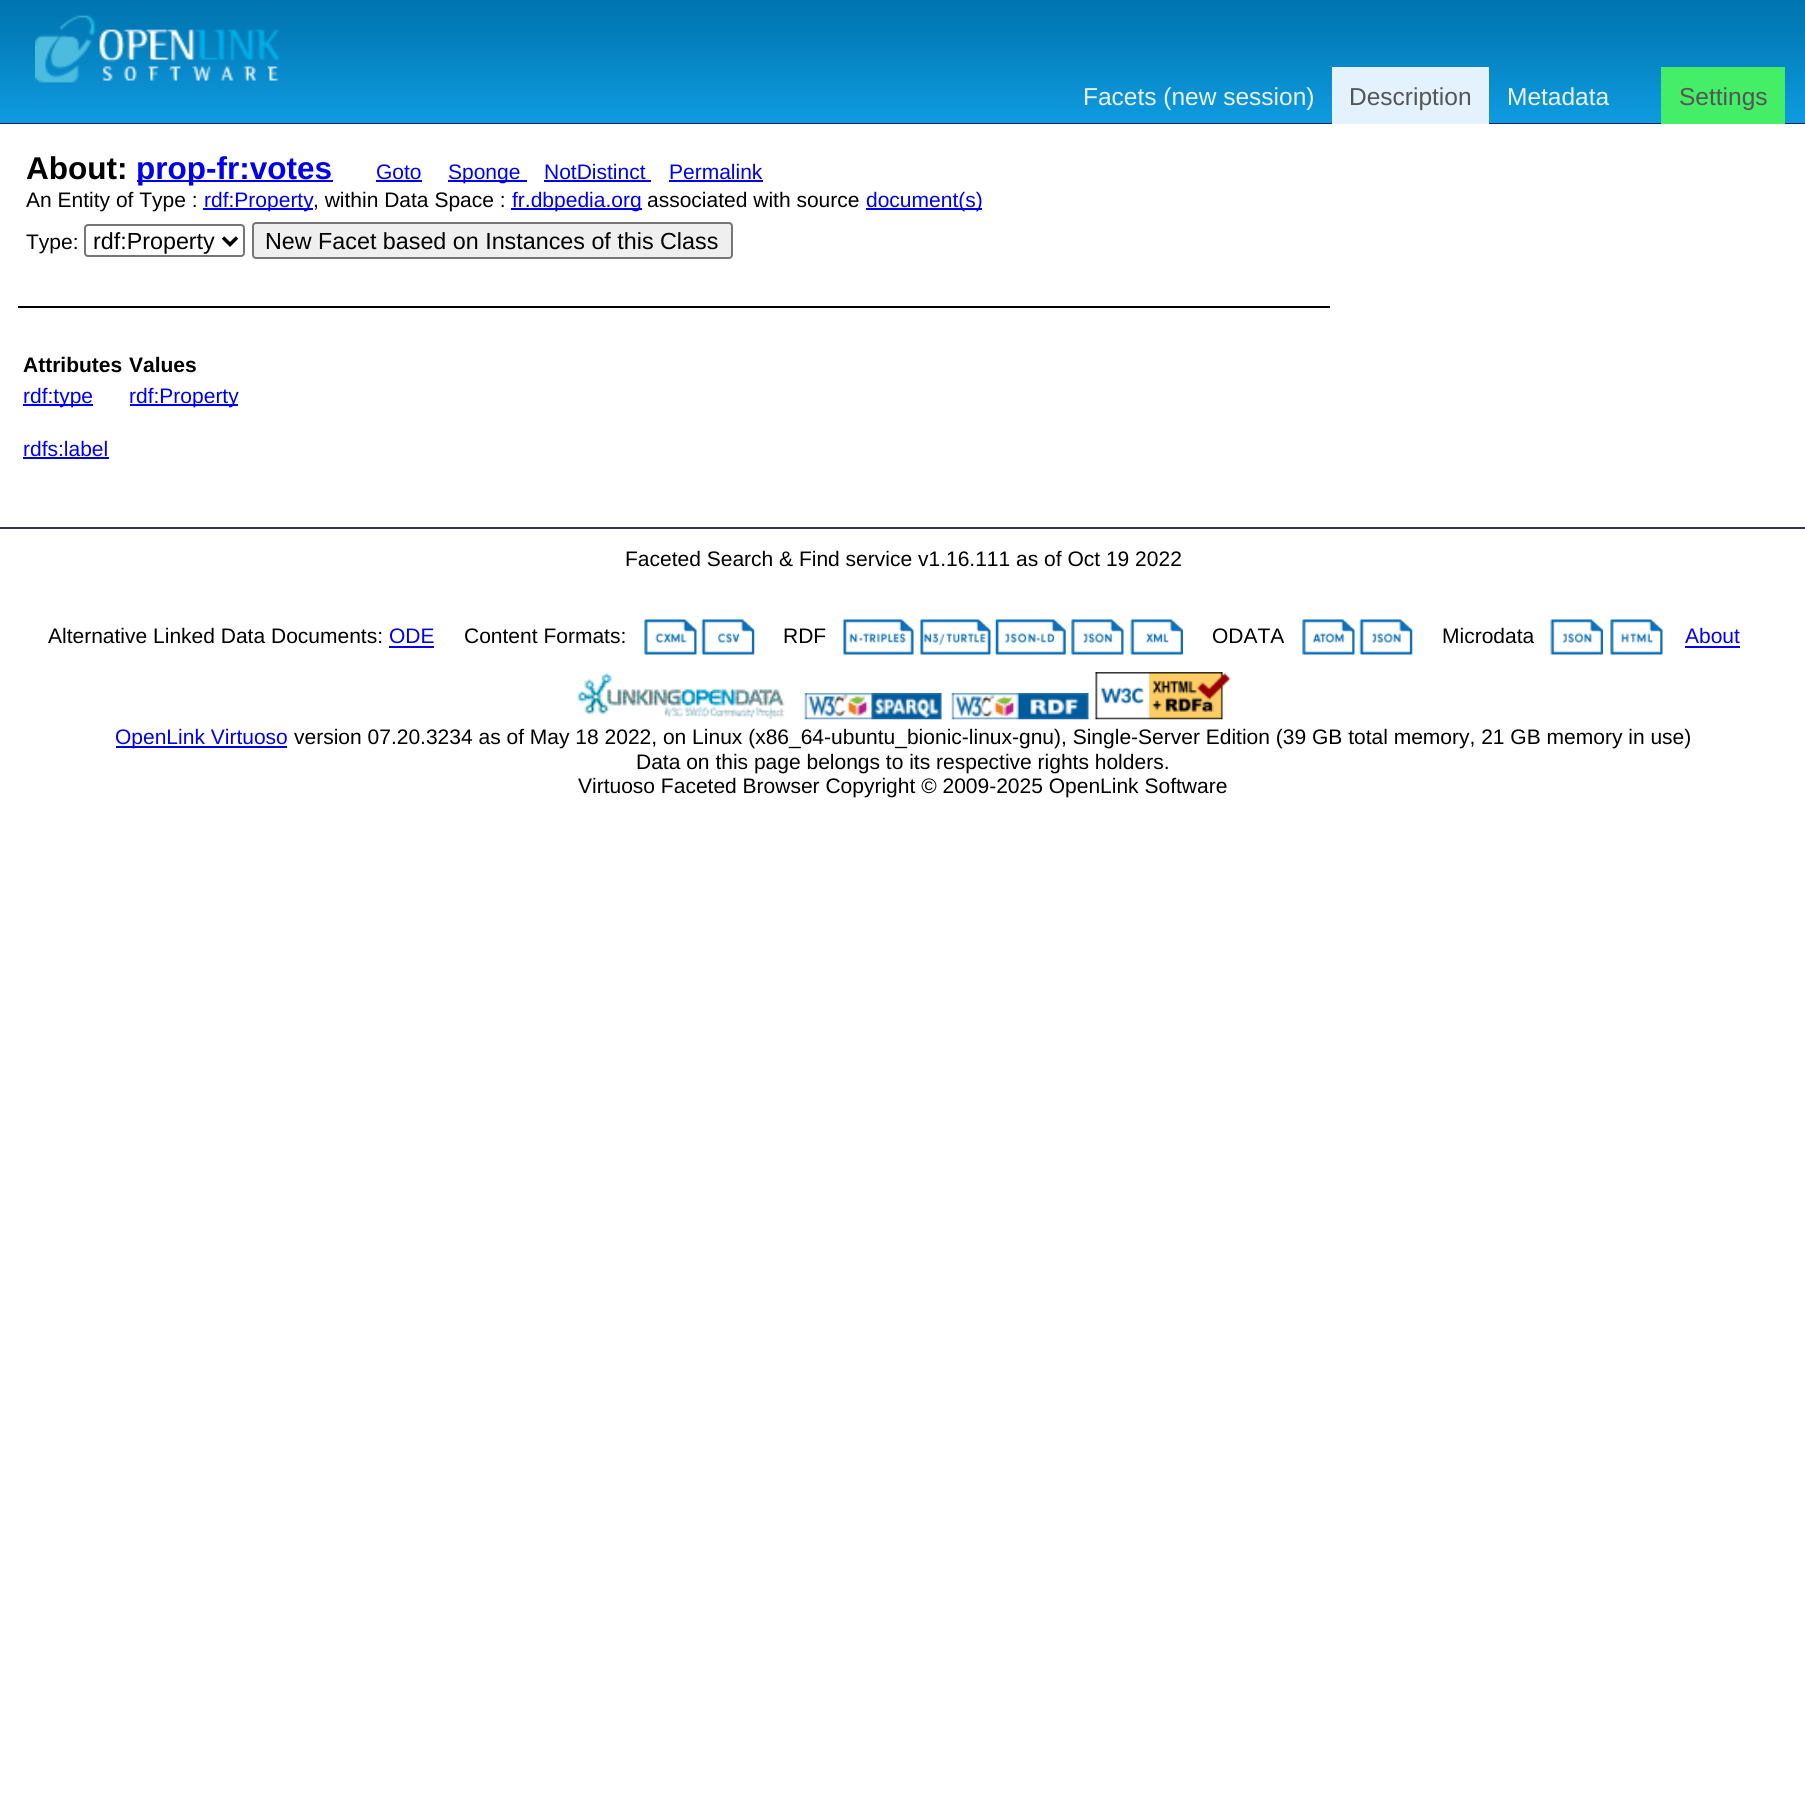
#include <cairo.h>
#include <math.h>
#include <stddef.h>

typedef struct { const char *family; double size; int italic, bold; unsigned color; } style_t;
static cairo_t *ctx;

static void ink(unsigned color) {
    cairo_set_source_rgb(ctx, (color >> 16) / 255.0, (color >> 8 & 255) / 255.0, (color & 255) / 255.0);
}

static void write(double x, double y, const char *s, const style_t *st) {
    cairo_select_font_face(ctx, st->family, st->italic ? CAIRO_FONT_SLANT_ITALIC : CAIRO_FONT_SLANT_NORMAL,
        st->bold ? CAIRO_FONT_WEIGHT_BOLD : CAIRO_FONT_WEIGHT_NORMAL);
    cairo_set_font_size(ctx, st->size);
    ink(st->color);
    cairo_move_to(ctx, x, y);
    cairo_show_text(ctx, s);
}

static void block(double x, double y, double w, double h, unsigned color) {
    ink(color);
    cairo_rectangle(ctx, x, y, w, h);
    cairo_fill(ctx);
}

static void round_path(double x, double y, double w, double h, double r) {
    cairo_new_sub_path(ctx);
    cairo_arc(ctx, x + w - r, y + h - r, r, 0, M_PI / 2);
    cairo_arc(ctx, x + r, y + h - r, r, M_PI / 2, M_PI);
    cairo_arc(ctx, x + r, y + r, r, M_PI, 1.5 * M_PI);
    cairo_arc(ctx, x + w - r, y + r, r, 1.5 * M_PI, 2 * M_PI);
    cairo_close_path(ctx);
}

static void paste(const char *path, double x, double y, double w, double h) {
    cairo_surface_t *image = cairo_image_surface_create_from_png(path);
    cairo_save(ctx);
    cairo_set_source_surface(ctx, image, x, y);
    cairo_rectangle(ctx, x, y, w, h);
    cairo_fill(ctx);
    cairo_restore(ctx);
    cairo_surface_destroy(image);
}

static const style_t s1 = {"Liberation Sans", 24.5, 0, 0, 0xe9f2f7};
static const style_t s2 = {"Liberation Sans", 24.5, 0, 0, 0x555555};
static const style_t s3 = {"Liberation Sans", 31.5, 0, 1, 0x000000};
static const style_t s4 = {"Liberation Sans", 31.5, 0, 1, 0x0000ee};
static const style_t s5 = {"Liberation Sans", 21, 0, 0, 0x0000ee};
static const style_t s6 = {"Liberation Sans", 21, 0, 0, 0x000000};
static const style_t s7 = {"Liberation Sans", 23.3, 0, 0, 0x000000};
static const style_t s8 = {"Liberation Sans", 21, 0, 1, 0x000000};

int main(void) {
    cairo_surface_t *surface = cairo_image_surface_create(CAIRO_FORMAT_RGB24, 1805, 1801);
    ctx = cairo_create(surface);
    cairo_font_options_t *options = cairo_font_options_create();
    cairo_font_options_set_hint_metrics(options, CAIRO_HINT_METRICS_OFF);
    cairo_font_options_set_hint_style(options, CAIRO_HINT_STYLE_NONE);
    cairo_set_font_options(ctx, options);
    cairo_set_miter_limit(ctx, 4);
    ink(0xffffff);
    cairo_paint(ctx);
    paste("pic1.png", 0, 0, 1805, 123);
    block(0, 123, 1805, 1, 0x222266);
    paste("pic2.png", 35, 15, 244, 68);
    write(1083, 105, "Facets (new session)", &s1);
    block(1332, 67, 157, 57, 0xe4f2fd);
    write(1349, 105, "Description", &s2);
    write(1507, 105, "Metadata", &s1);
    block(1661, 67, 124, 57, 0x44ee66);
    write(1679, 105, "Settings", &s2);
    write(26, 179, "About:", &s3);
    block(137, 180, 196, 2, 0x0000ee);
    write(136, 179, "prop-fr:votes", &s4);
    write(376, 179, "Goto", &s5);
    block(376, 180, 46, 2, 0x0000ee);
    block(448, 180, 79, 2, 0x0000ee);
    write(448, 179, "Sponge", &s5);
    write(544, 179, "NotDistinct", &s5);
    block(544, 180, 107, 2, 0x0000ee);
    write(669, 179, "Permalink", &s5);
    block(669, 180, 94, 2, 0x0000ee);
    write(26, 207, "An Entity of Type :", &s6);
    block(203, 208, 110, 2, 0x0000ee);
    write(204, 207, "rdf:Property", &s5);
    write(313, 207, ", within Data Space :", &s6);
    block(511, 208, 131, 2, 0x0000ee);
    write(512, 207, "fr.dbpedia.org", &s5);
    write(647, 207, "associated with source", &s6);
    block(866, 208, 116, 2, 0x0000ee);
    write(866, 207, "document(s)", &s5);
    write(26, 249, "Type:", &s6);
    round_path(85, 225, 159, 31, 3);
    ink(0x767676);
    cairo_stroke(ctx);
    cairo_new_path(ctx);
    cairo_move_to(ctx, 223, 237.5);
    cairo_line_to(ctx, 230, 244.5);
    cairo_line_to(ctx, 237, 237.5);
    ink(0x000000);
    cairo_set_line_width(ctx, 3.5);
    cairo_stroke(ctx);
    write(93, 249, "rdf:Property", &s7);
    ink(0xefefef);
    round_path(253, 223, 479, 35, 3);
    cairo_fill_preserve(ctx);
    ink(0x767676);
    cairo_set_line_width(ctx, 2);
    cairo_stroke(ctx);
    write(265, 249, "New Facet based on Instances of this Class", &s7);
    block(18, 306, 1312, 2, 0x000000);
    write(23, 372, "Attributes", &s8);
    write(129, 372, "Values", &s8);
    block(23, 404, 70, 2, 0x0000ee);
    write(23, 403, "rdf:type", &s5);
    block(130, 404, 108, 2, 0x0000ee);
    write(129, 403, "rdf:Property", &s5);
    write(23, 456, "rdfs:label", &s5);
    block(23, 457, 86, 2, 0x0000ee);
    block(0, 527, 1805, 2, 0x333355);
    write(625, 566, "Faceted Search & Find service v1.16.111 as of Oct 19 2022", &s6);
    write(48, 643, "Alternative Linked Data Documents:", &s6);
    write(389, 643, "ODE", &s5);
    block(389, 646, 45, 2, 0x0000ee);
    write(464, 643, "Content Formats:", &s6);
    paste("pic3.png", 644, 619, 53, 36);
    paste("pic4.png", 701, 619, 54, 36);
    write(783, 643, "RDF", &s6);
    paste("pic5.png", 843, 619, 71, 36);
    paste("pic6.png", 920, 619, 71, 36);
    paste("pic7.png", 995, 619, 71, 36);
    paste("pic8.png", 1071, 619, 53, 36);
    paste("pic9.png", 1130, 619, 53, 36);
    write(1212, 643, "ODATA", &s6);
    paste("pic10.png", 1302, 619, 53, 36);
    paste("pic11.png", 1359, 619, 54, 36);
    write(1442, 643, "Microdata", &s6);
    paste("pic12.png", 1550, 619, 53, 36);
    paste("pic13.png", 1610, 619, 53, 36);
    write(1685, 643, "About", &s5);
    block(1685, 646, 55, 2, 0x0000ee);
    paste("pic14.png", 577, 673, 208, 47);
    paste("pic15.png", 804, 693, 138, 27);
    paste("pic16.png", 951, 693, 138, 27);
    paste("pic17.png", 1095, 672, 136, 48);
    block(116, 746, 171, 2, 0x0000ee);
    write(115, 744, "OpenLink Virtuoso", &s5);
    write(294, 744, "version 07.20.3234 as of May 18 2022, on Linux (x86_64-ubuntu_bionic-linux-gnu), Single-Server Edition (39 GB total memory, 21 GB memory in use)", &s6);
    write(636, 769, "Data on this page belongs to its respective rights holders.", &s6);
    write(578, 793, "Virtuoso Faceted Browser Copyright © 2009-2025 OpenLink Software", &s6);
    cairo_surface_write_to_png(surface, "screenshot.png");
    cairo_font_options_destroy(options);
    cairo_destroy(ctx);
    cairo_surface_destroy(surface);
    return 0;
}
